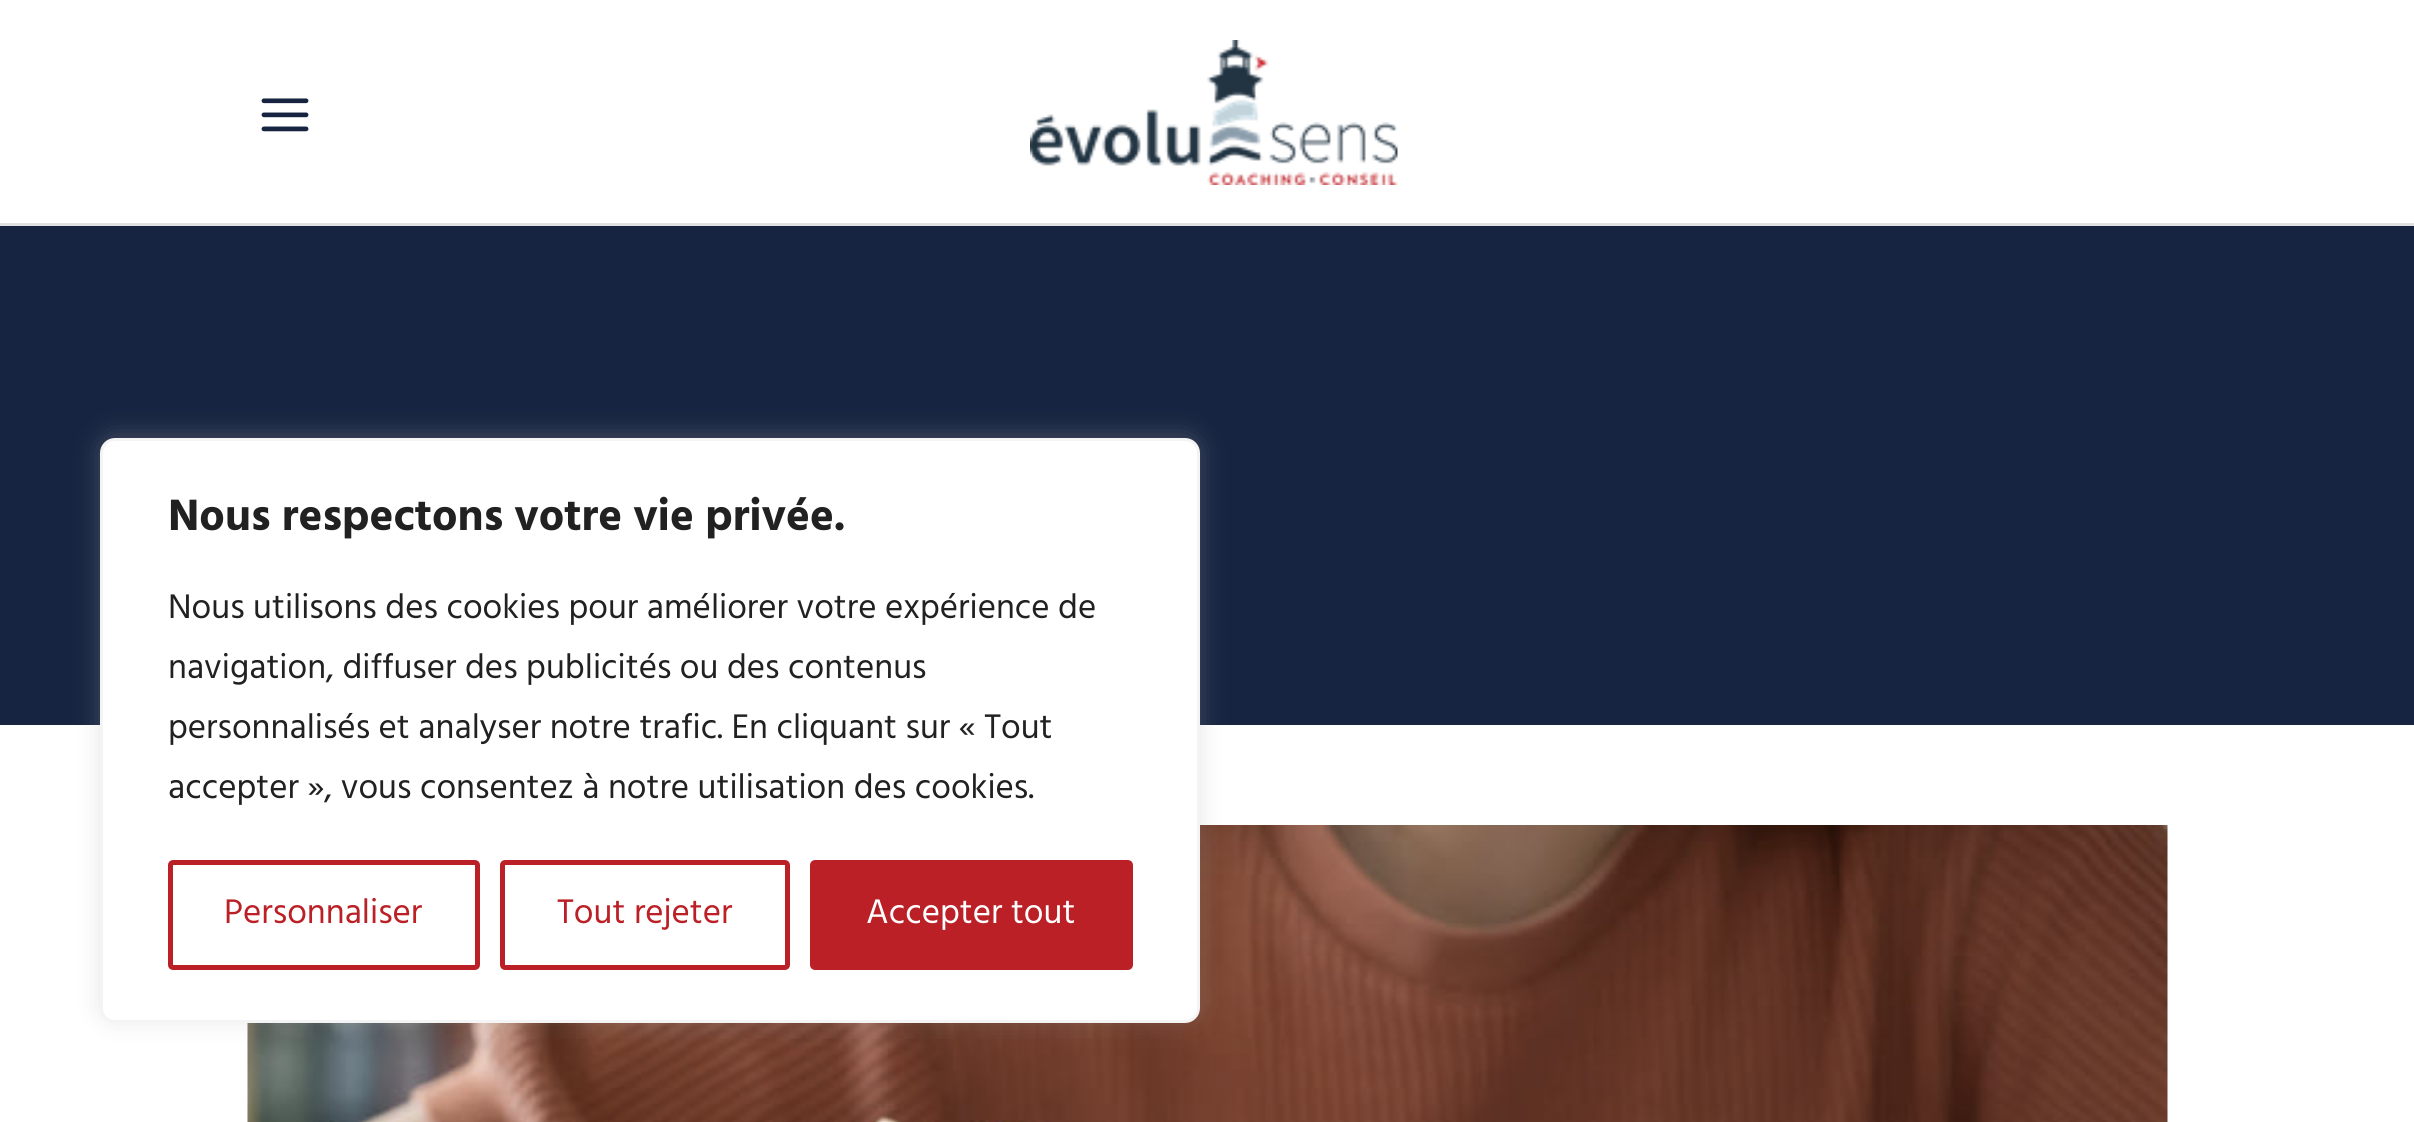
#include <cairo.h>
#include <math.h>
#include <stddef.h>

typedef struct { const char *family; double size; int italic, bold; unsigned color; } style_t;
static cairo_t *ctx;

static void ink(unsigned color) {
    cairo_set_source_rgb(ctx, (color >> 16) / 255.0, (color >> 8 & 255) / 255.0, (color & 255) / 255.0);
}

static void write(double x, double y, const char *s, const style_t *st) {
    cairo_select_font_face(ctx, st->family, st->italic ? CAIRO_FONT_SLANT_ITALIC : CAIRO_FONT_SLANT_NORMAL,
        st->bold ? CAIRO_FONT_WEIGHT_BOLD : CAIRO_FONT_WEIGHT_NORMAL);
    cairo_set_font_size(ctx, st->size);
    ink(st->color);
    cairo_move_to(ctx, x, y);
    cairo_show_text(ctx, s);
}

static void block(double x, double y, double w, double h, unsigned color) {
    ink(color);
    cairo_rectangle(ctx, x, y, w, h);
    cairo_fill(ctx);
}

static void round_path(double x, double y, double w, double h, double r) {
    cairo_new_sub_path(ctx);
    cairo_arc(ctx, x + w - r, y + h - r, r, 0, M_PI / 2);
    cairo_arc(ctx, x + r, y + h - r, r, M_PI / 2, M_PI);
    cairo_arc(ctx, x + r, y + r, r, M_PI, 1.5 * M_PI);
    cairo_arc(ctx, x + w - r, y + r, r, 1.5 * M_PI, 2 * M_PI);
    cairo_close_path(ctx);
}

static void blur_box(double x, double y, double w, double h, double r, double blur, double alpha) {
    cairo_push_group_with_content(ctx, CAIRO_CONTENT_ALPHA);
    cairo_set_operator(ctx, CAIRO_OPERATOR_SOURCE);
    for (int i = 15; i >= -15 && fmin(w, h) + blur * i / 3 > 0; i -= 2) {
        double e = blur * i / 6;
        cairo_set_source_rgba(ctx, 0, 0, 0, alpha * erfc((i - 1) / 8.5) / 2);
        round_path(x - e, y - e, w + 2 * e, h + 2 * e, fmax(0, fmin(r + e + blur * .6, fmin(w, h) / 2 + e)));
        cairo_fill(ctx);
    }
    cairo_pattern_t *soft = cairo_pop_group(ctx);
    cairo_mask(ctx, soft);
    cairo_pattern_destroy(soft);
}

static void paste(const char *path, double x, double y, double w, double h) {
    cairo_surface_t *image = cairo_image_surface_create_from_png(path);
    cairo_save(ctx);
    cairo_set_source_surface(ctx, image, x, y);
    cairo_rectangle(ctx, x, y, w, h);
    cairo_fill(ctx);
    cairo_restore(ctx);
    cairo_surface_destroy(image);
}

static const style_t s1 = {"Hind", 45, 0, 1, 0x212121};
static const style_t s2 = {"Hind", 35, 0, 0, 0x212121};
static const style_t s3 = {"Hind", 35, 0, 0, 0xbb2026};
static const style_t s4 = {"Hind", 35, 0, 0, 0xffffff};

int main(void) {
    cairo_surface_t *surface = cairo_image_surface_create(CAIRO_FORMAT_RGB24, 2414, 1122);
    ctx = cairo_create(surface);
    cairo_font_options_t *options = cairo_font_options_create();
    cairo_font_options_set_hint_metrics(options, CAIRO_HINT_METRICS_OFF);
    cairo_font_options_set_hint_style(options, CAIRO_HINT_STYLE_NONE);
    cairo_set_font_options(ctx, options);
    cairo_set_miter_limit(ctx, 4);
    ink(0xffffff);
    cairo_paint(ctx);
    block(0, 223, 2414, 3, 0xe1e1e1);
    paste("pic1.png", 261, 98, 48, 34);
    paste("pic2.png", 1030, 40, 368, 145);
    block(0, 226, 2414, 499, 0x162441);
    paste("pic3.png", 247, 825, 1921, 297);
    ink(0xacabab);
    blur_box(100, 435, 1100, 585, 15, 12.5, 0.3);
    ink(0xffffff);
    round_path(101.5, 439.5, 1097, 582, 13.5);
    cairo_fill_preserve(ctx);
    ink(0xf4f4f4);
    cairo_set_line_width(ctx, 3);
    cairo_stroke(ctx);
    write(168, 530, "Nous respectons votre vie privée.", &s1);
    write(168, 618, "Nous utilisons des cookies pour améliorer votre expérience de", &s2);
    write(168, 678, "navigation, diffuser des publicités ou des contenus", &s2);
    write(168, 738, "personnalisés et analyser notre trafic. En cliquant sur « Tout", &s2);
    write(168, 798, "accepter », vous consentez à notre utilisation des cookies.", &s2);
    round_path(170.5, 862.5, 307, 105, 2.5);
    ink(0xbb2026);
    cairo_set_line_width(ctx, 5);
    cairo_stroke(ctx);
    write(224, 923, "Personnaliser", &s3);
    round_path(502.5, 862.5, 285, 105, 2.5);
    cairo_stroke(ctx);
    write(557, 923, "Tout rejeter", &s3);
    round_path(812.5, 862.5, 318, 105, 2.5);
    cairo_fill_preserve(ctx);
    cairo_stroke(ctx);
    write(866, 923, "Accepter tout", &s4);
    cairo_surface_write_to_png(surface, "screenshot.png");
    cairo_font_options_destroy(options);
    cairo_destroy(ctx);
    cairo_surface_destroy(surface);
    return 0;
}
